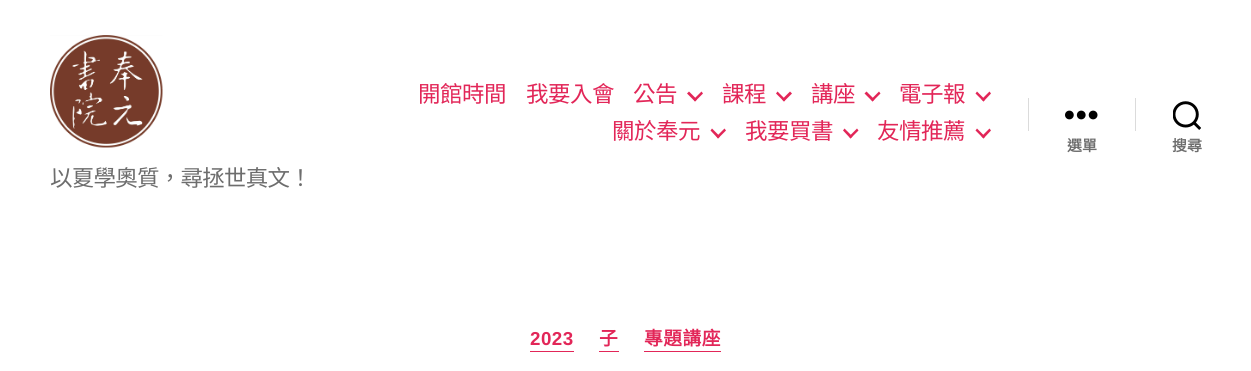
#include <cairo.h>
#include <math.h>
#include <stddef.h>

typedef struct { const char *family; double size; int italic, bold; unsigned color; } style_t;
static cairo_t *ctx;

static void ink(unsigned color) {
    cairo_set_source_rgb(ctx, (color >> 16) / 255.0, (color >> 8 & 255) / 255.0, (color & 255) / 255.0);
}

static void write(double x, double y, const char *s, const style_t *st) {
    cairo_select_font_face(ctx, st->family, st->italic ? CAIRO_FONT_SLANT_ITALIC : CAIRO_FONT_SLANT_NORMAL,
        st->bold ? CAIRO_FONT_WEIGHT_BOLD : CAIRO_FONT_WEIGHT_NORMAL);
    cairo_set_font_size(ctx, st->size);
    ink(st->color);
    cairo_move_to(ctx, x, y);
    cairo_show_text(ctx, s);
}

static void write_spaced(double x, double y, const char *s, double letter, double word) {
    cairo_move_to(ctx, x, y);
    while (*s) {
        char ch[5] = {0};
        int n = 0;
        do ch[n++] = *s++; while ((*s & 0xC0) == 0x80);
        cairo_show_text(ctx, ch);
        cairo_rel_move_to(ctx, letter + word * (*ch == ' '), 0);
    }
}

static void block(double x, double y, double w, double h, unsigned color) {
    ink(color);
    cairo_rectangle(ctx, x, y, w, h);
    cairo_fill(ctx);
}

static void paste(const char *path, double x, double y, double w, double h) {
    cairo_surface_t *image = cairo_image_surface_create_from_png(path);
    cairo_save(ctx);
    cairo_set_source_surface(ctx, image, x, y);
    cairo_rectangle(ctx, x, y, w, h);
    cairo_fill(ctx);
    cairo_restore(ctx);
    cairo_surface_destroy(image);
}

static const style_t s1 = {"Noto Sans CJK TC", 15, 0, 1, 0x6d6d6d};

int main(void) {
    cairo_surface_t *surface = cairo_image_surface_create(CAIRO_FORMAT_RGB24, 1251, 371);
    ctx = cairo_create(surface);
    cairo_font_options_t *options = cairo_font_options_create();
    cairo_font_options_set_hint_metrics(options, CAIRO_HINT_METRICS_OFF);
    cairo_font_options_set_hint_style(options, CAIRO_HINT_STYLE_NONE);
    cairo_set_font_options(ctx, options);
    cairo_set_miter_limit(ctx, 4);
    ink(0xffffff);
    cairo_paint(ctx);
    cairo_select_font_face(ctx, "Noto Sans CJK TC", CAIRO_FONT_SLANT_NORMAL, CAIRO_FONT_WEIGHT_NORMAL);
    cairo_set_font_size(ctx, 22.5);
    ink(0xe22658);
    write_spaced(418, 102, "開館時間", -0.5, 0);
    write_spaced(526, 102, "我要入會", -0.5, 0);
    write_spaced(633, 102, "公告", -0.5, 0);
    cairo_new_path(ctx);
    cairo_move_to(ctx, 687, 93.5);
    cairo_line_to(ctx, 689, 91.5);
    cairo_line_to(ctx, 697, 99.5);
    cairo_line_to(ctx, 695, 101.5);
    cairo_close_path(ctx);
    cairo_fill(ctx);
    cairo_new_path(ctx);
    cairo_move_to(ctx, 693.5, 99.5);
    cairo_line_to(ctx, 701.5, 91.5);
    cairo_line_to(ctx, 703, 93.5);
    cairo_line_to(ctx, 695, 101.5);
    cairo_close_path(ctx);
    cairo_fill(ctx);
    write_spaced(722, 102, "課程", -0.5, 0);
    cairo_new_path(ctx);
    cairo_move_to(ctx, 776, 93.5);
    cairo_line_to(ctx, 777.5, 91.5);
    cairo_line_to(ctx, 785.5, 99.5);
    cairo_line_to(ctx, 784, 101.5);
    cairo_close_path(ctx);
    cairo_fill(ctx);
    cairo_new_path(ctx);
    cairo_move_to(ctx, 782, 99.5);
    cairo_line_to(ctx, 790, 91.5);
    cairo_line_to(ctx, 792, 93.5);
    cairo_line_to(ctx, 784, 101.5);
    cairo_close_path(ctx);
    cairo_fill(ctx);
    write_spaced(811, 102, "講座", -0.5, 0);
    cairo_new_path(ctx);
    cairo_move_to(ctx, 864.5, 93.5);
    cairo_line_to(ctx, 866.5, 91.5);
    cairo_line_to(ctx, 874.5, 99.5);
    cairo_line_to(ctx, 872.5, 101.5);
    cairo_close_path(ctx);
    cairo_fill(ctx);
    cairo_new_path(ctx);
    cairo_move_to(ctx, 871, 99.5);
    cairo_line_to(ctx, 879, 91.5);
    cairo_line_to(ctx, 880.5, 93.5);
    cairo_line_to(ctx, 872.5, 101.5);
    cairo_close_path(ctx);
    cairo_fill(ctx);
    write_spaced(899, 102, "電子報", -0.5, 0);
    cairo_new_path(ctx);
    cairo_move_to(ctx, 975.5, 93.5);
    cairo_line_to(ctx, 977, 91.5);
    cairo_line_to(ctx, 985, 99.5);
    cairo_line_to(ctx, 983.5, 101.5);
    cairo_close_path(ctx);
    cairo_fill(ctx);
    cairo_new_path(ctx);
    cairo_move_to(ctx, 981.5, 99.5);
    cairo_line_to(ctx, 989.5, 91.5);
    cairo_line_to(ctx, 991, 93.5);
    cairo_line_to(ctx, 983.5, 101.5);
    cairo_close_path(ctx);
    cairo_fill(ctx);
    write_spaced(612, 139, "關於奉元", -0.5, 0);
    cairo_new_path(ctx);
    cairo_move_to(ctx, 710.5, 130.5);
    cairo_line_to(ctx, 712, 128.5);
    cairo_line_to(ctx, 720, 136.5);
    cairo_line_to(ctx, 718, 138.5);
    cairo_close_path(ctx);
    cairo_fill(ctx);
    cairo_new_path(ctx);
    cairo_move_to(ctx, 716.5, 136.5);
    cairo_line_to(ctx, 724.5, 128.5);
    cairo_line_to(ctx, 726, 130.5);
    cairo_line_to(ctx, 718, 138.5);
    cairo_close_path(ctx);
    cairo_fill(ctx);
    write_spaced(745, 139, "我要買書", -0.5, 0);
    cairo_new_path(ctx);
    cairo_move_to(ctx, 843, 130.5);
    cairo_line_to(ctx, 844.5, 128.5);
    cairo_line_to(ctx, 852.5, 136.5);
    cairo_line_to(ctx, 850.5, 138.5);
    cairo_close_path(ctx);
    cairo_fill(ctx);
    cairo_new_path(ctx);
    cairo_move_to(ctx, 849, 136.5);
    cairo_line_to(ctx, 857, 128.5);
    cairo_line_to(ctx, 858.5, 130.5);
    cairo_line_to(ctx, 850.5, 138.5);
    cairo_close_path(ctx);
    cairo_fill(ctx);
    write_spaced(877, 139, "友情推薦", -0.5, 0);
    cairo_new_path(ctx);
    cairo_move_to(ctx, 975.5, 130.5);
    cairo_line_to(ctx, 977, 128.5);
    cairo_line_to(ctx, 985, 136.5);
    cairo_line_to(ctx, 983.5, 138.5);
    cairo_close_path(ctx);
    cairo_fill(ctx);
    cairo_new_path(ctx);
    cairo_move_to(ctx, 981.5, 136.5);
    cairo_line_to(ctx, 989.5, 128.5);
    cairo_line_to(ctx, 991, 130.5);
    cairo_line_to(ctx, 983.5, 138.5);
    cairo_close_path(ctx);
    cairo_fill(ctx);
    block(1028, 98, 1, 33, 0xdbdbdb);
    paste("pic1.png", 1065, 110, 33, 10);
    write(1067, 151, "選單", &s1);
    block(1135, 98, 1, 33, 0xdbdbdb);
    paste("pic2.png", 1173, 101, 28, 29);
    write(1172, 151, "搜尋", &s1);
    paste("pic3.png", 50, 35, 113, 113);
    cairo_select_font_face(ctx, "Noto Sans CJK TC", CAIRO_FONT_SLANT_NORMAL, CAIRO_FONT_WEIGHT_NORMAL);
    cairo_set_font_size(ctx, 22.5);
    write_spaced(50, 186, "以夏學奧質，尋拯世真文！", -0.75, 0);
    block(530, 351, 44, 1, 0xe22658);
    cairo_select_font_face(ctx, "Liberation Sans", CAIRO_FONT_SLANT_NORMAL, CAIRO_FONT_WEIGHT_BOLD);
    cairo_set_font_size(ctx, 18.75);
    write_spaced(530, 345, "2023", 0.5, 0);
    block(599, 351, 20, 1, 0xe22658);
    cairo_select_font_face(ctx, "Noto Sans CJK TC", CAIRO_FONT_SLANT_NORMAL, CAIRO_FONT_WEIGHT_BOLD);
    write_spaced(599, 345, "子", 0.5, 0);
    block(644, 351, 77, 1, 0xe22658);
    write_spaced(644, 345, "專題講座", 0.5, 0);
    cairo_surface_write_to_png(surface, "screenshot.png");
    cairo_font_options_destroy(options);
    cairo_destroy(ctx);
    cairo_surface_destroy(surface);
    return 0;
}
